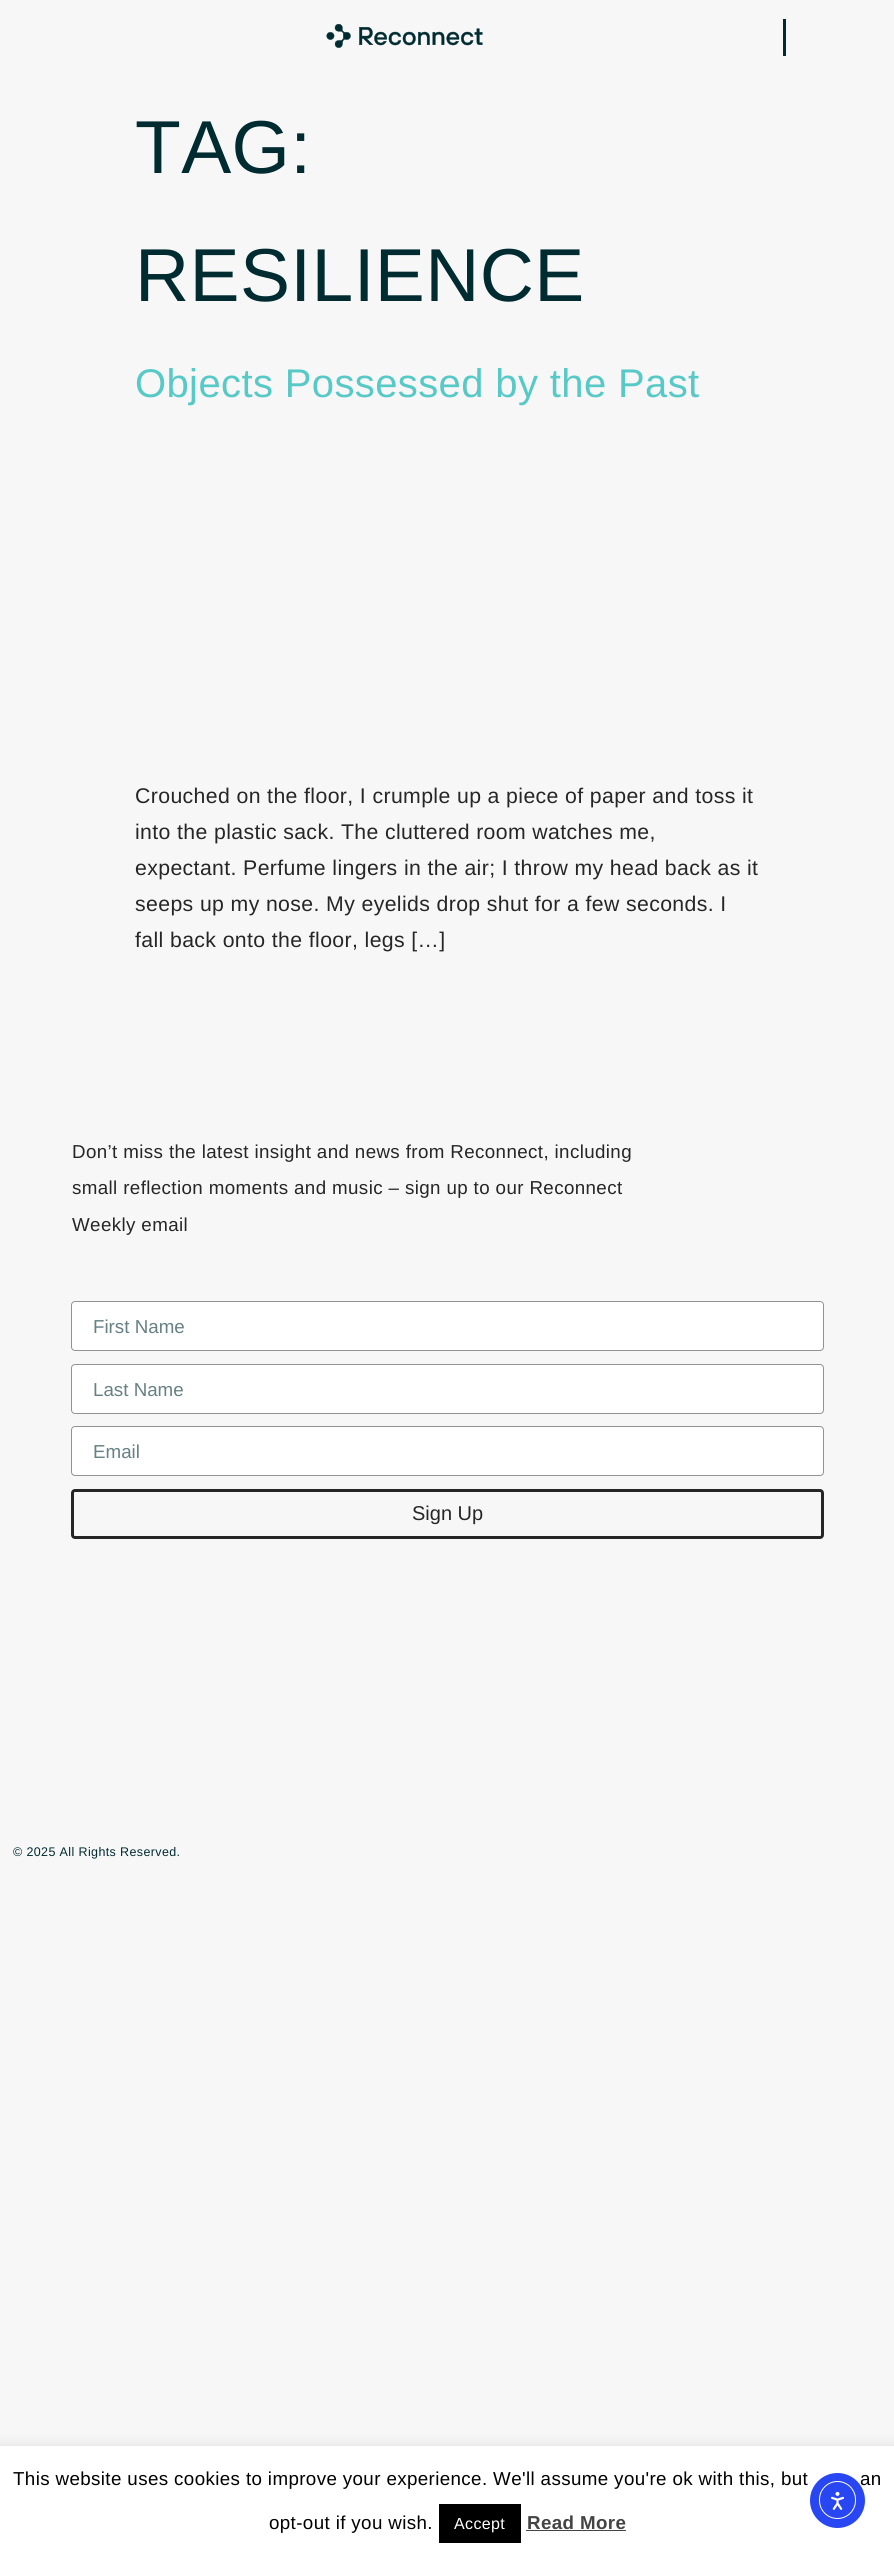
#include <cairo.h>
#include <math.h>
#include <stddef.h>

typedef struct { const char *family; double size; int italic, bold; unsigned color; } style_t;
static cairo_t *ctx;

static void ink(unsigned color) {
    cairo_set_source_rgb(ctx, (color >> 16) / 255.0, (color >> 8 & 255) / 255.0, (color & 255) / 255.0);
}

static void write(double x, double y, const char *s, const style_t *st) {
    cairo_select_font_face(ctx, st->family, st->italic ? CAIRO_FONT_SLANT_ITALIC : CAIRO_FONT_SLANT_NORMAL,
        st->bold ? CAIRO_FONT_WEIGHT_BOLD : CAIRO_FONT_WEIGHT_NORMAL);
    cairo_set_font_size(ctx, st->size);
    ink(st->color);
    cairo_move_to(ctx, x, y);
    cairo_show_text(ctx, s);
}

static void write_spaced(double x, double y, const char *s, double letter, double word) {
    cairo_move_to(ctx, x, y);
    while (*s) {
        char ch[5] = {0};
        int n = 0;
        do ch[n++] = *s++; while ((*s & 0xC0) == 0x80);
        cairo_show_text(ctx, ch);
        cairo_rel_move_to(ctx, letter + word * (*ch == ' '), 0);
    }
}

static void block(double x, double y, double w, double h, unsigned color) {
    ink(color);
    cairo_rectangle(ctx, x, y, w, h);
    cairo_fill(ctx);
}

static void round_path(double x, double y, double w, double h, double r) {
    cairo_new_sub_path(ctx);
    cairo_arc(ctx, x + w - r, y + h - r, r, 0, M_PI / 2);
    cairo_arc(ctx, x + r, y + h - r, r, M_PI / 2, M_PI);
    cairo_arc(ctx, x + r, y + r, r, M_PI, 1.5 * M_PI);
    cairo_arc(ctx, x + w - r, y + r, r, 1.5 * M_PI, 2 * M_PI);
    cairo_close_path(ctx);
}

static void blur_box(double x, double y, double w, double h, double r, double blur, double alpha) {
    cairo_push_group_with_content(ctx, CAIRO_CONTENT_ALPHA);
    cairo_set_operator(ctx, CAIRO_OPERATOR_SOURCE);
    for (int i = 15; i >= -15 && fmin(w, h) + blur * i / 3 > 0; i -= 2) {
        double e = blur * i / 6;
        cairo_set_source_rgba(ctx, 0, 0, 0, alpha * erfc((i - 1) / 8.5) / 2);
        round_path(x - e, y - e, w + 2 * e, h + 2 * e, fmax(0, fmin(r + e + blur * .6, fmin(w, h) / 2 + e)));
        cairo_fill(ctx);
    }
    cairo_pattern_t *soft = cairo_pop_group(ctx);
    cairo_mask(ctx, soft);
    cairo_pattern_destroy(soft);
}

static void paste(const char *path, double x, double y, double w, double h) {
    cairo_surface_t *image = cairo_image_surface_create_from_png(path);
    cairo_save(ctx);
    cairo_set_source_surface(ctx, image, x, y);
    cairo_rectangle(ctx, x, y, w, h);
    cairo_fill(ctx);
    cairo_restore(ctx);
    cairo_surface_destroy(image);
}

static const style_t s1 = {"Liberation Sans", 18.75, 0, 0, 0x668083};
static const style_t s2 = {"Liberation Sans", 20, 0, 0, 0x262626};

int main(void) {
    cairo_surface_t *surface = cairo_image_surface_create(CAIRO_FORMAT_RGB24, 894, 2557);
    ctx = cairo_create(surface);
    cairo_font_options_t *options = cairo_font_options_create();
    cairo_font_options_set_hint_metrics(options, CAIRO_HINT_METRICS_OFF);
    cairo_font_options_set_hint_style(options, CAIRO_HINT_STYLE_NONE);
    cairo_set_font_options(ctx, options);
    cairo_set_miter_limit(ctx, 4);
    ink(0xf7f7f7);
    cairo_paint(ctx);
    paste("pic1.png", 326, 24, 157, 24);
    block(783, 19, 3, 37, 0x002b31);
    cairo_select_font_face(ctx, "Liberation Sans", CAIRO_FONT_SLANT_NORMAL, CAIRO_FONT_WEIGHT_NORMAL);
    cairo_set_font_size(ctx, 75);
    write_spaced(135, 173, "TAG:", 0.38, 0);
    write_spaced(135, 301, "RESILIENCE", 0.38, 0);
    cairo_set_font_size(ctx, 40);
    ink(0x57c9c6);
    write_spaced(135, 397, "Objects Possessed by the Past", 0.38, 0);
    cairo_set_font_size(ctx, 21.25);
    ink(0x262626);
    write_spaced(135, 803, "Crouched on the floor, I crumple up a piece of paper and toss it", 0.38, 0);
    write_spaced(135, 839, "into the plastic sack. The cluttered room watches me,", 0.38, 0);
    write_spaced(135, 875, "expectant. Perfume lingers in the air; I throw my head back as it", 0.38, 0);
    write_spaced(135, 911, "seeps up my nose. My eyelids drop shut for a few seconds. I", 0.38, 0);
    write_spaced(135, 947, "fall back onto the floor, legs […]", 0.38, 0);
    cairo_set_font_size(ctx, 18.75);
    write_spaced(72, 1158, "Don’t miss the latest insight and news from Reconnect, including", 0.38, 0);
    write_spaced(72, 1194, "small reflection moments and music – sign up to our Reconnect", 0.38, 0);
    write_spaced(72, 1231, "Weekly email", 0.38, 0);
    ink(0xffffff);
    round_path(71.5, 1301.5, 752, 49, 3.5);
    cairo_fill_preserve(ctx);
    ink(0x929292);
    cairo_set_line_width(ctx, 1);
    cairo_stroke(ctx);
    write(93, 1333, "First Name", &s1);
    ink(0xffffff);
    round_path(71.5, 1364.5, 752, 49, 3.5);
    cairo_fill_preserve(ctx);
    ink(0x929292);
    cairo_stroke(ctx);
    write(93, 1396, "Last Name", &s1);
    ink(0xffffff);
    round_path(71.5, 1426.5, 752, 49, 3.5);
    cairo_fill_preserve(ctx);
    ink(0x929292);
    cairo_stroke(ctx);
    write(93, 1458, "Email", &s1);
    round_path(72.5, 1490.5, 750, 47, 2.5);
    ink(0x262626);
    cairo_set_line_width(ctx, 3);
    cairo_stroke(ctx);
    write(412, 1520, "Sign Up", &s2);
    cairo_set_font_size(ctx, 12.5);
    ink(0x002b31);
    write_spaced(13, 1856, "© 2025 All Rights Reserved.", 0.38, 0);
    ink(0xacabab);
    blur_box(0, 2445, 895, 111, 0, 6, 0.3);
    block(0, 2446, 894, 111, 0xffffff);
    cairo_set_font_size(ctx, 18.75);
    ink(0x000000);
    write_spaced(13, 2485, "This website uses cookies to improve your experience. We'll assume you're ok with this, but", 0.38, 0);
    write_spaced(860, 2485, "an", 0.38, 0);
    write_spaced(269, 2529, "opt-out if you wish.", 0.38, 0);
    block(439, 2504, 82, 39, 0x000000);
    cairo_set_font_size(ctx, 16);
    ink(0xffffff);
    write_spaced(454, 2529, "Accept", 0.38, 0);
    cairo_select_font_face(ctx, "Liberation Sans", CAIRO_FONT_SLANT_NORMAL, CAIRO_FONT_WEIGHT_BOLD);
    cairo_set_font_size(ctx, 18.75);
    ink(0x444444);
    write_spaced(527, 2529, "Read More", 0.38, 0);
    block(526, 2530, 100, 1, 0x444444);
    ink(0x2847f3);
    cairo_new_path(ctx);
    cairo_arc(ctx, 837.5, 2500.5, 27.5, 0, 2 * M_PI);
    cairo_fill(ctx);
    round_path(819.5, 2481.5, 36, 37, 18);
    ink(0xffffff);
    cairo_set_line_width(ctx, 1);
    cairo_stroke(ctx);
    paste("pic2.png", 831, 2491, 13, 19);
    cairo_surface_write_to_png(surface, "screenshot.png");
    cairo_font_options_destroy(options);
    cairo_destroy(ctx);
    cairo_surface_destroy(surface);
    return 0;
}
